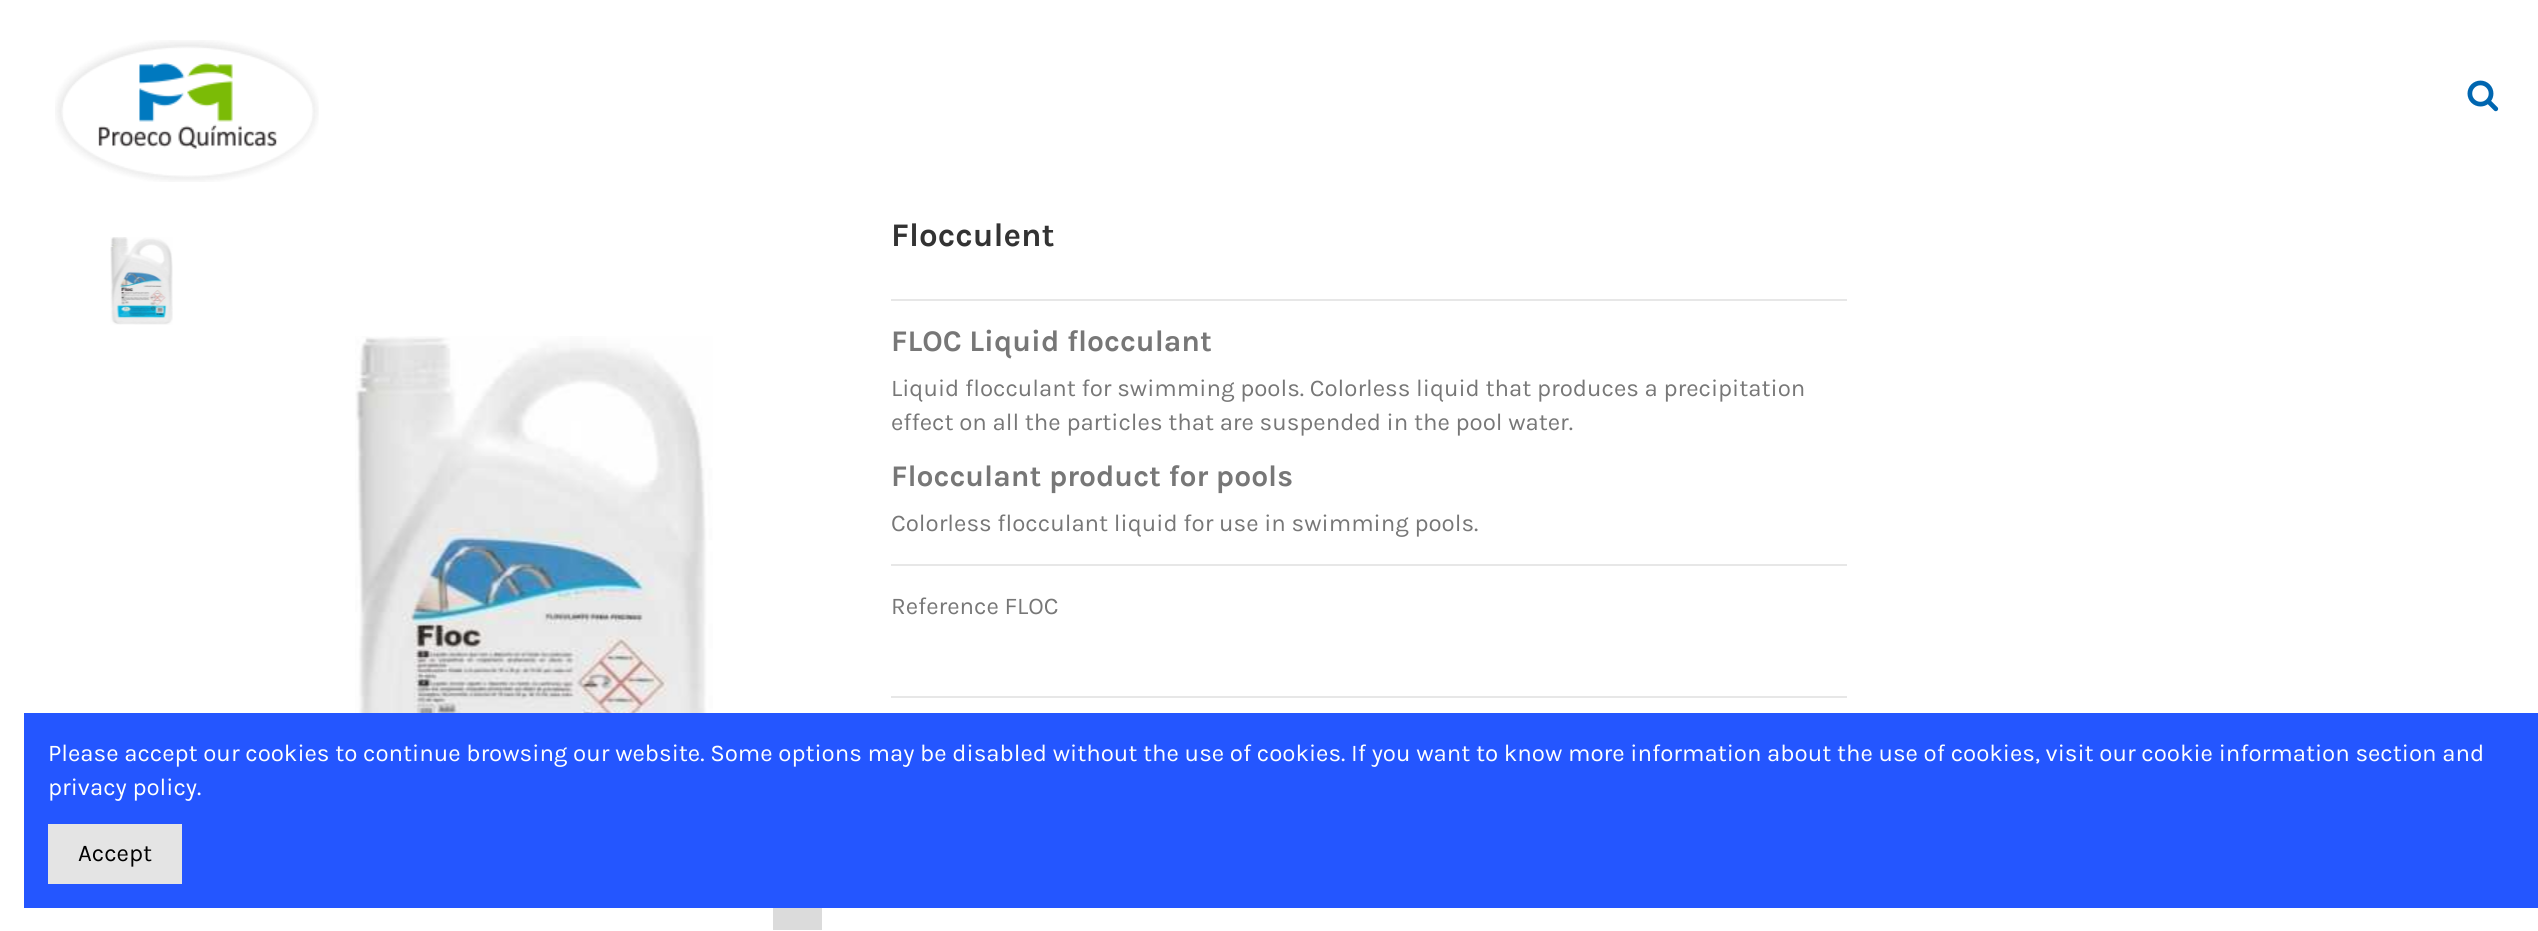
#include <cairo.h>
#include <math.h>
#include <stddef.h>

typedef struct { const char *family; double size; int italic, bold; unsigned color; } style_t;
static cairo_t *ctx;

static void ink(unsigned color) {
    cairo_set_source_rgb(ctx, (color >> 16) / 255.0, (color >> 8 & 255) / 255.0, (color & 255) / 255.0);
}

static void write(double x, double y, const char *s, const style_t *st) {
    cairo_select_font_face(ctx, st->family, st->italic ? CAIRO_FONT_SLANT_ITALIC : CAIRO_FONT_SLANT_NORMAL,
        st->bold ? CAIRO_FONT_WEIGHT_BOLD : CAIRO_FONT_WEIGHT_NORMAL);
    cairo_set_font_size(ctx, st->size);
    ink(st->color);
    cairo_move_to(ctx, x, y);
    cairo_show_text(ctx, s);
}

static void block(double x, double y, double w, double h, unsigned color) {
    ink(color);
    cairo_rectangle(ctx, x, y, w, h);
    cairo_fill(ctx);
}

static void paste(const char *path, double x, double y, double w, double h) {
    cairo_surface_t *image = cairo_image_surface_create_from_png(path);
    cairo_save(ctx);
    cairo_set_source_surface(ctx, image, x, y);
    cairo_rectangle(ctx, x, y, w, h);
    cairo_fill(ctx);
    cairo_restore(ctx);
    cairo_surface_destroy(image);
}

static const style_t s1 = {"Karla", 33, 0, 1, 0x333333};
static const style_t s2 = {"Karla", 30, 0, 1, 0x777777};
static const style_t s3 = {"Karla", 24, 0, 0, 0x777777};
static const style_t s4 = {"Karla", 24, 0, 0, 0xffffff};
static const style_t s5 = {"Karla", 24, 0, 0, 0x000000};

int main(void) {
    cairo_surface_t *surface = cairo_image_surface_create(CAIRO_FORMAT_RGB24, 2538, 931);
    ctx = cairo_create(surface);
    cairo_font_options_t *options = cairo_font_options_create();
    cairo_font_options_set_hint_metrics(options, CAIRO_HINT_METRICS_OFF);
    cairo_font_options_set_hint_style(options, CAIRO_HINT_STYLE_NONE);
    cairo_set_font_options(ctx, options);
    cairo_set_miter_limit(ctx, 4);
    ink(0xffffff);
    cairo_paint(ctx);
    paste("pic1.png", 55, 40, 264, 142);
    paste("pic2.png", 2467, 80, 32, 32);
    paste("pic3.png", 110, 237, 63, 88);
    paste("pic4.png", 355, 336, 358, 377);
    block(773, 908, 49, 22, 0xdbdbdb);
    block(891, 299, 956, 2, 0xe7e7e7);
    write(891, 246, "Flocculent", &s1);
    write(891, 351, "FLOC Liquid flocculant", &s2);
    write(891, 396, "Liquid flocculant for swimming pools. Colorless liquid that produces a precipitation", &s3);
    write(891, 430, "effect on all the particles that are suspended in the pool water.", &s3);
    write(891, 486, "Flocculant product for pools", &s2);
    write(891, 531, "Colorless flocculant liquid for use in swimming pools.", &s3);
    block(891, 564, 956, 2, 0xe7e7e7);
    write(891, 614, "Reference FLOC", &s3);
    block(891, 696, 956, 2, 0xe7e7e7);
    block(24, 713, 2514, 195, 0x2456ff);
    write(48, 761, "Please accept our cookies to continue browsing our website. Some options may be disabled without the use of cookies. If you want to know more information about the use of cookies, visit our cookie information section and", &s4);
    write(48, 795, "privacy policy.", &s4);
    block(48, 824, 134, 60, 0xe4e4e4);
    write(78, 861, "Accept", &s5);
    cairo_surface_write_to_png(surface, "screenshot.png");
    cairo_font_options_destroy(options);
    cairo_destroy(ctx);
    cairo_surface_destroy(surface);
    return 0;
}
